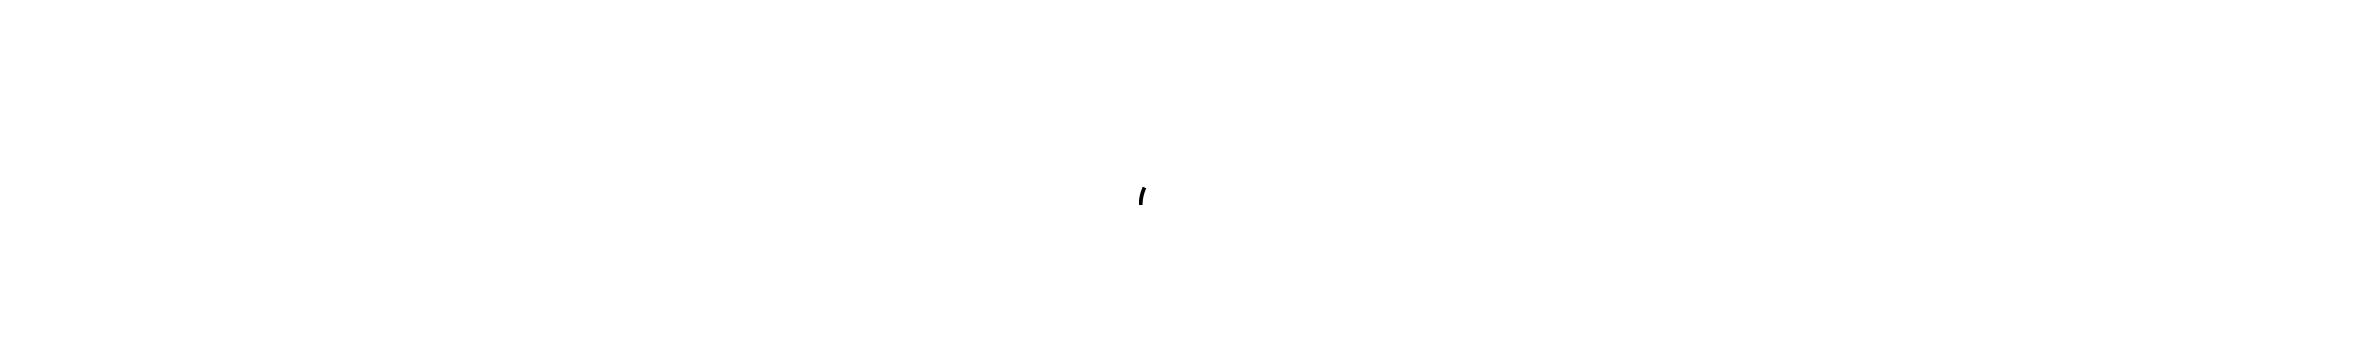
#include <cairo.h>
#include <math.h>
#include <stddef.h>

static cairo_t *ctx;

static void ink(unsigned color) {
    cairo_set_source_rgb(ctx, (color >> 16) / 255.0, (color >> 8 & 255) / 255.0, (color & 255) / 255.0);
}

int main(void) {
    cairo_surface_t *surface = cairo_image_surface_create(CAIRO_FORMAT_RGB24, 2365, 364);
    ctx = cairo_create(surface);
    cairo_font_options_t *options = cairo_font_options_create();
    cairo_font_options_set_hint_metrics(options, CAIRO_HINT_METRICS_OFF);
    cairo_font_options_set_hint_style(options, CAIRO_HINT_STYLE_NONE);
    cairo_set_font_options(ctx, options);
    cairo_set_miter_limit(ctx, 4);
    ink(0xffffff);
    cairo_paint(ctx);
    cairo_save(ctx);
    cairo_rectangle(ctx, 1139, 161, 87, 44);
    cairo_clip(ctx);
    cairo_new_path(ctx);
    cairo_move_to(ctx, 1220.5, 222.5);
    cairo_curve_to(ctx, 1203, 260, 1147.5, 252, 1141, 211.5);
    cairo_curve_to(ctx, 1140, 203, 1141, 195, 1144.5, 187.5);
    ink(0x000000);
    cairo_set_line_width(ctx, 3.8);
    cairo_stroke(ctx);
    cairo_restore(ctx);
    cairo_surface_write_to_png(surface, "screenshot.png");
    cairo_font_options_destroy(options);
    cairo_destroy(ctx);
    cairo_surface_destroy(surface);
    return 0;
}
